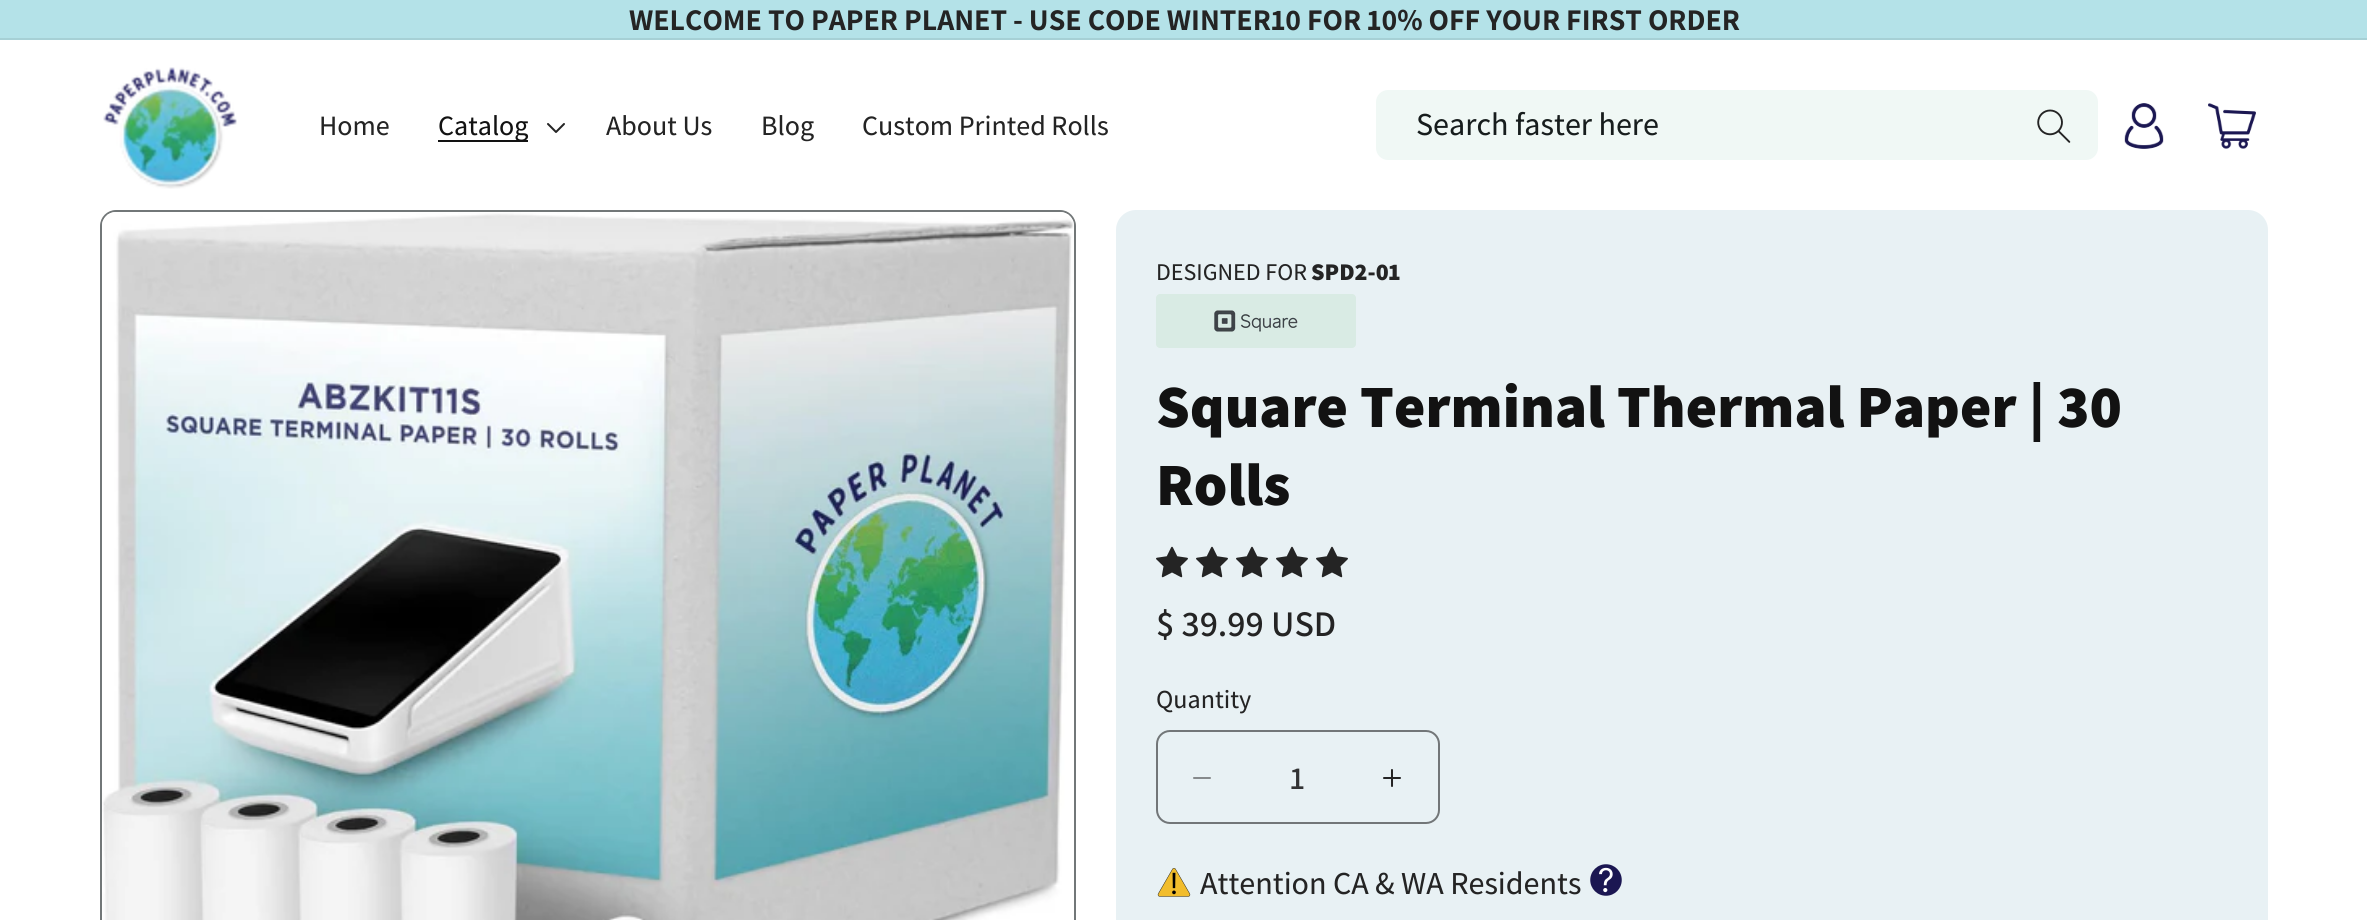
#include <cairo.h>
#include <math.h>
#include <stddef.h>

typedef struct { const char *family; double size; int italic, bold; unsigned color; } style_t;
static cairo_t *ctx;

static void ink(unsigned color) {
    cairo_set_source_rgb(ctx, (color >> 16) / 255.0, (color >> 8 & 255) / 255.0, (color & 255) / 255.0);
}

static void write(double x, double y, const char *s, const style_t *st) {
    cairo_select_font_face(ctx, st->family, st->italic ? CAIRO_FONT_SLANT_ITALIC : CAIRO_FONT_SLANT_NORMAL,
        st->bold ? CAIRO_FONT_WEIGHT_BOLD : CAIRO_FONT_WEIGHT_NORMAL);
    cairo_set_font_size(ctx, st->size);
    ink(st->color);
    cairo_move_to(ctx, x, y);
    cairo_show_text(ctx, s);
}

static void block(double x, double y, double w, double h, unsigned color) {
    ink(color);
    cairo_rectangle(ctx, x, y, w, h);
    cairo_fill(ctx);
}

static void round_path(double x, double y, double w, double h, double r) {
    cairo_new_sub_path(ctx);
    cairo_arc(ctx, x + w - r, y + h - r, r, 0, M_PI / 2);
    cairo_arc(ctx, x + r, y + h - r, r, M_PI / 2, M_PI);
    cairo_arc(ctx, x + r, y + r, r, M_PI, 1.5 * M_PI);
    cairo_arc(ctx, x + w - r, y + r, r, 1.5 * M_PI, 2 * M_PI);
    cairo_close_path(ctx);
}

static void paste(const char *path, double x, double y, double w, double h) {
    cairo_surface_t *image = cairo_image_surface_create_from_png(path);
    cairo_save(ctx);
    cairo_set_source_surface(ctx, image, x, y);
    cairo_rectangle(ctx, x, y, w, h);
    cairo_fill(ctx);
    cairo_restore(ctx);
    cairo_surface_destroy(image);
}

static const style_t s1 = {"Assistant", 30, 0, 1, 0x242424};
static const style_t s2 = {"Assistant Medium", 28, 0, 0, 0x242424};
static const style_t s3 = {"Assistant Medium", 28, 0, 0, 0x121212};
static const style_t s4 = {"Assistant Medium", 32, 0, 0, 0x171d1d};
static const style_t s5 = {"Assistant Medium", 24, 0, 0, 0x242424};
static const style_t s6 = {"Assistant ExtraBold", 24, 0, 0, 0x242424};
static const style_t s7 = {"Assistant ExtraBold", 60, 0, 0, 0x121212};
static const style_t s8 = {"Assistant SemiBold", 36, 0, 0, 0x242424};
static const style_t s9 = {"Assistant Medium", 26, 0, 0, 0x242424};
static const style_t s10 = {"Assistant SemiBold", 32, 0, 0, 0x323334};
static const style_t s11 = {"Assistant Medium", 32, 0, 0, 0x242424};

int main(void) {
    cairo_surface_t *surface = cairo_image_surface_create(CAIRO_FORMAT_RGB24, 2367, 920);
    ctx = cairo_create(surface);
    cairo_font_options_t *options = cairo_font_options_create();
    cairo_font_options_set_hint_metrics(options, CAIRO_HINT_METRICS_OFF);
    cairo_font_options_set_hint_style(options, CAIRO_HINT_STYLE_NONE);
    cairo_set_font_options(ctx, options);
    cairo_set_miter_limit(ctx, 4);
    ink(0xffffff);
    cairo_paint(ctx);
    block(0, 0, 2367, 38, 0xb4e2e8);
    block(0, 38, 2367, 2, 0xa6d0d5);
    write(629, 30, "WELCOME TO PAPER PLANET - USE CODE WINTER10 FOR 10% OFF YOUR FIRST ORDER", &s1);
    paste("pic1.png", 103, 67, 134, 122);
    write(319, 135, "Home", &s2);
    block(438, 140, 90, 2, 0x121212);
    write(438, 135, "Catalog", &s3);
    paste("pic2.png", 547, 123, 18, 10);
    write(606, 135, "About Us", &s2);
    write(761, 135, "Blog", &s2);
    write(862, 135, "Custom Printed Rolls", &s2);
    ink(0xf0f8f5);
    round_path(1376, 90, 722, 70, 12);
    cairo_fill(ctx);
    write(1416, 135, "Search faster here", &s4);
    paste("pic3.png", 2037, 109, 34, 34);
    paste("pic4.png", 2124, 103, 40, 46);
    paste("pic5.png", 2208, 103, 48, 46);
    round_path(101, 211, 974, 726, 15);
    ink(0x727778);
    cairo_stroke(ctx);
    paste("pic6.png", 102, 212, 972, 708);
    ink(0xe8f1f4);
    round_path(1116, 210, 1152, 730, 20);
    cairo_fill(ctx);
    write(1156, 280, "DESIGNED FOR", &s5);
    write(1311, 280, "SPD2-01", &s6);
    ink(0xd9ebe4);
    round_path(1156, 294, 200, 54, 4);
    cairo_fill(ctx);
    paste("pic7.png", 1214, 310, 84, 22);
    write(1156, 427, "Square Terminal Thermal Paper | 30", &s7);
    write(1156, 505, "Rolls", &s7);
    paste("pic8.png", 1156, 546, 32, 32);
    paste("pic8.png", 1196, 546, 32, 32);
    paste("pic8.png", 1236, 546, 32, 32);
    paste("pic8.png", 1276, 546, 32, 32);
    paste("pic8.png", 1316, 546, 32, 32);
    write(1156, 636, "$ 39.99 USD", &s8);
    write(1156, 708, "Quantity", &s9);
    paste("pic9.png", 1193, 777, 18, 2);
    paste("pic10.png", 1383, 769, 18, 18);
    round_path(1157, 731, 282, 92, 13);
    ink(0x727678);
    cairo_stroke(ctx);
    write(1290, 789, "1", &s10);
    paste("pic11.png", 1157, 868, 34, 29);
    write(1200, 894, "Attention CA & WA Residents", &s11);
    paste("pic12.png", 1590, 864, 32, 32);
    cairo_surface_write_to_png(surface, "screenshot.png");
    cairo_font_options_destroy(options);
    cairo_destroy(ctx);
    cairo_surface_destroy(surface);
    return 0;
}
